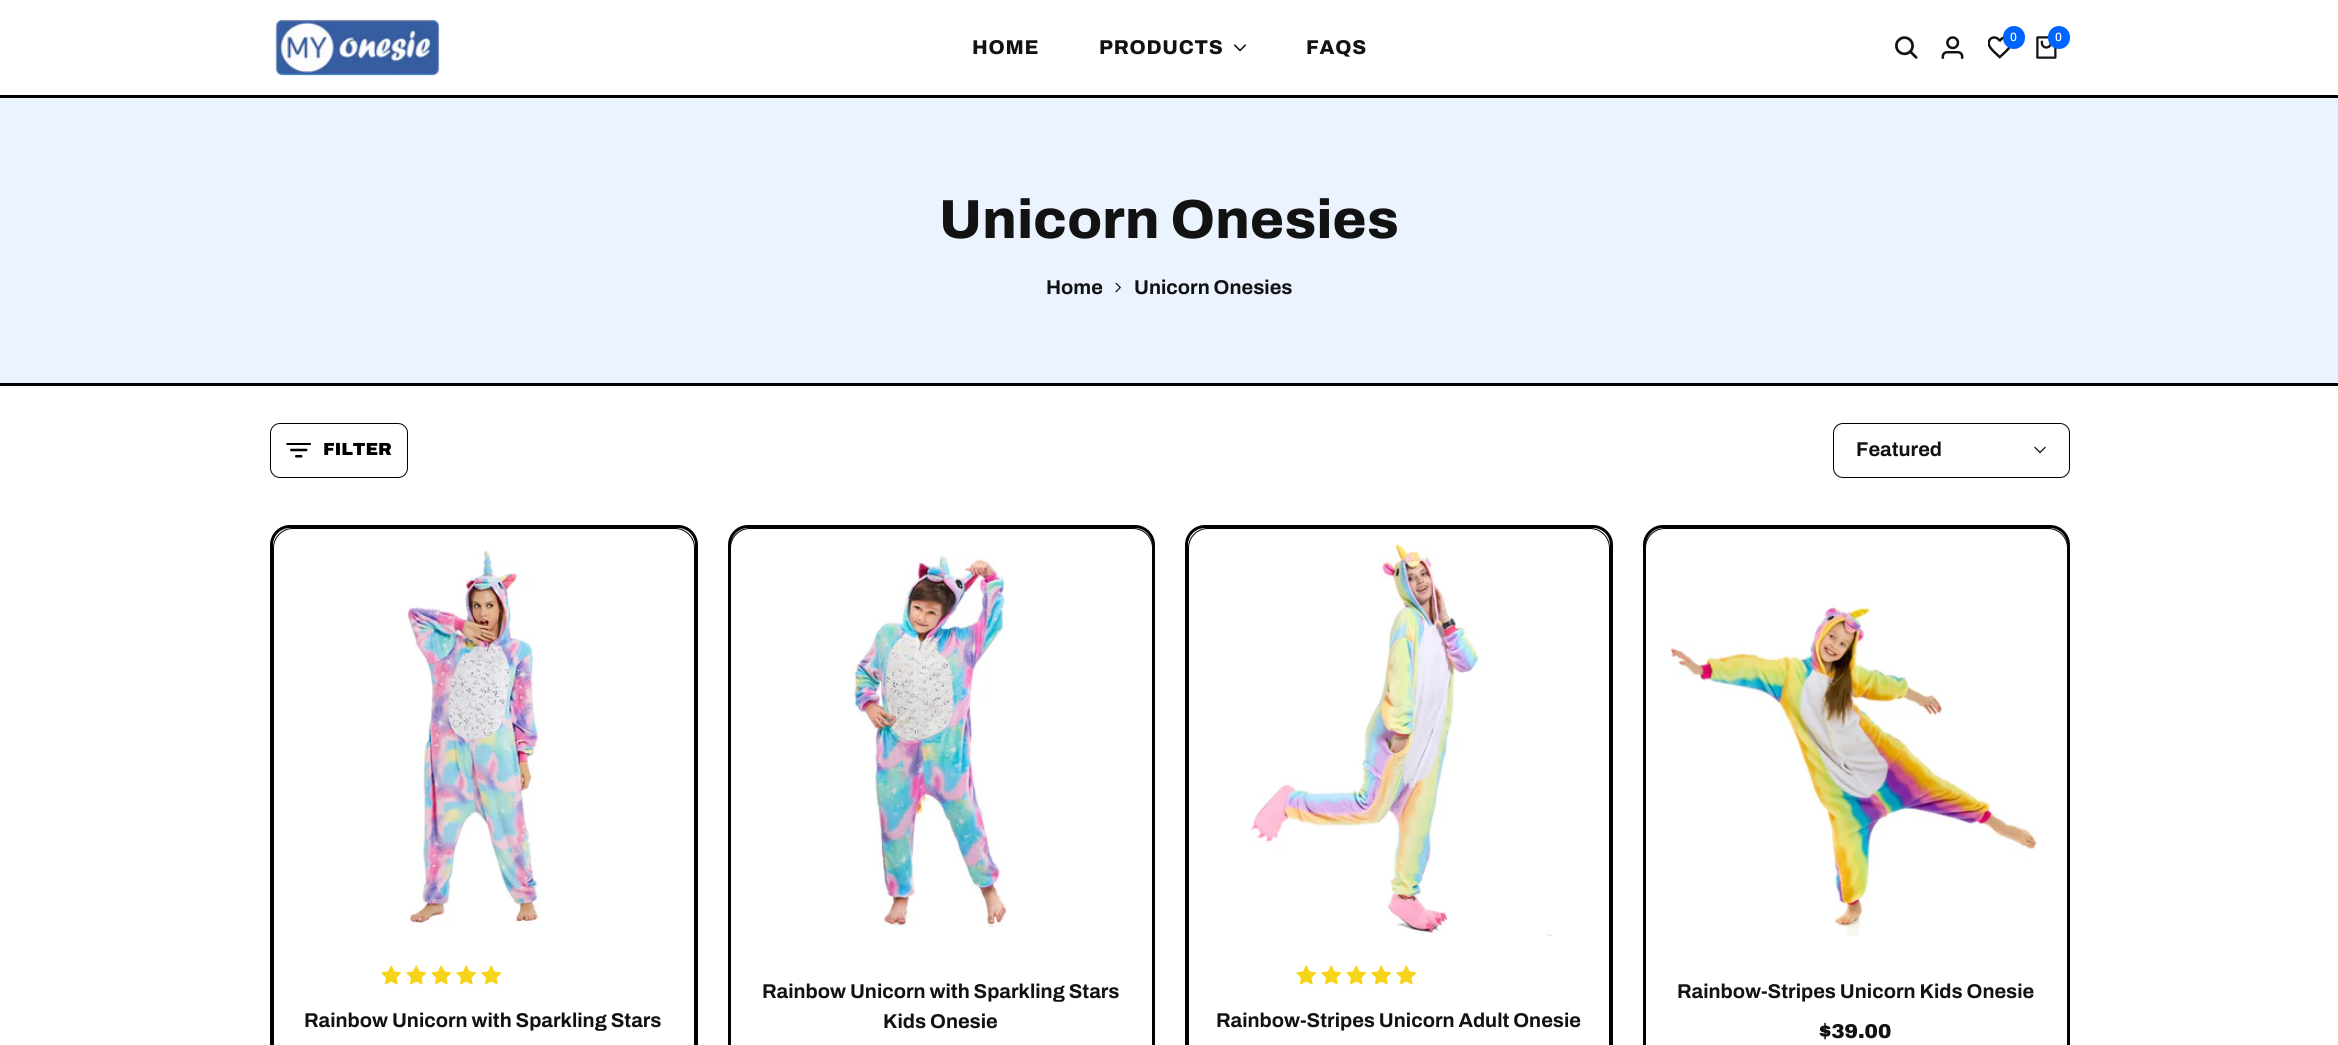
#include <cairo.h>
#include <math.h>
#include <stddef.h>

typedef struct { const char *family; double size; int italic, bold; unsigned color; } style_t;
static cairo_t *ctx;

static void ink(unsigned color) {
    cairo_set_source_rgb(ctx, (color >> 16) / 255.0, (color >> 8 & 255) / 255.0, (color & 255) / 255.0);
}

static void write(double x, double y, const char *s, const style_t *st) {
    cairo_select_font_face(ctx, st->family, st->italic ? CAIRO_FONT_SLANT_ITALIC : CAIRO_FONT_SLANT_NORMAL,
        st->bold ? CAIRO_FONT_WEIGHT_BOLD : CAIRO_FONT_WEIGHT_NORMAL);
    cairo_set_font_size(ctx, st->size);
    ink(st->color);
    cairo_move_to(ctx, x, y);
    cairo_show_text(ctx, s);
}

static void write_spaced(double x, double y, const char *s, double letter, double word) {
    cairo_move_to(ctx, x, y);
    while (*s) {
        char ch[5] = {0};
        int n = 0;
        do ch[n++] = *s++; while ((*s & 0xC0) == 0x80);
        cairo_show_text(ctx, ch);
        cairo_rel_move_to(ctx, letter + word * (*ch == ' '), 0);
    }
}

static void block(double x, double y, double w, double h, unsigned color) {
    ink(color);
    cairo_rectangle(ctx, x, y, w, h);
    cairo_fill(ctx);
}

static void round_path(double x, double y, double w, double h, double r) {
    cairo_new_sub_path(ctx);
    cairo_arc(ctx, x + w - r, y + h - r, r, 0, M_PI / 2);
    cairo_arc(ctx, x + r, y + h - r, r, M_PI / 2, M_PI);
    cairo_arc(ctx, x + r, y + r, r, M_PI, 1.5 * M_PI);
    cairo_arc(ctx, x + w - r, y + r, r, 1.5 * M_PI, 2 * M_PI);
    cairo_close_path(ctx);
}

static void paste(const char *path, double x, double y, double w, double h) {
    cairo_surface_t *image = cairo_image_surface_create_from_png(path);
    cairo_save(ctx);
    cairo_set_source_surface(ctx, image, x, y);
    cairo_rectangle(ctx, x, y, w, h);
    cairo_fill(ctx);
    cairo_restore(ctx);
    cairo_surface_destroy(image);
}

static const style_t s1 = {"Archivo Medium", 12, 0, 0, 0xffffff};
static const style_t s2 = {"Archivo", 20, 0, 1, 0x121213};
static const style_t s3 = {"Archivo Black", 17.5, 0, 0, 0x000000};
static const style_t s4 = {"Archivo Black", 20, 0, 0, 0x121213};

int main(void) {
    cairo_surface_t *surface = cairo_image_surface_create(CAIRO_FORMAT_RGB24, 2338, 1045);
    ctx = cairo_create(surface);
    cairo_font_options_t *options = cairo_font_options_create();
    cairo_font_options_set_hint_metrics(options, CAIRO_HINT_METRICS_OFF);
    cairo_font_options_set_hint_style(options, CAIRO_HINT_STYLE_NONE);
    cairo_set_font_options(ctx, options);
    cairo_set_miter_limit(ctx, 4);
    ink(0xffffff);
    cairo_paint(ctx);
    block(0, 95, 2338, 3, 0x000000);
    paste("pic1.png", 275, 19, 165, 57);
    paste("pic2.png", 1895, 36, 23, 23);
    paste("pic3.png", 1941, 36, 23, 23);
    paste("pic4.png", 1988, 36, 23, 23);
    ink(0x0064ff);
    round_path(2003, 26, 22, 23, 11);
    cairo_fill(ctx);
    write(2010, 41, "0", &s1);
    paste("pic5.png", 2036, 36, 21, 23);
    ink(0x0064ff);
    round_path(2048, 26, 22, 23, 11);
    cairo_fill(ctx);
    write(2055, 41, "0", &s1);
    cairo_select_font_face(ctx, "Archivo ExtraBold", CAIRO_FONT_SLANT_NORMAL, CAIRO_FONT_WEIGHT_NORMAL);
    cairo_set_font_size(ctx, 20);
    ink(0x121213);
    write_spaced(972, 54, "HOME", 0.75, 0);
    write_spaced(1099, 54, "PRODUCTS", 0.75, 0);
    paste("pic6.png", 1234, 44, 12, 8);
    write_spaced(1306, 54, "FAQS", 0.75, 0);
    block(0, 98, 2338, 285, 0xebf3ff);
    cairo_set_font_size(ctx, 55);
    ink(0x121213);
    write_spaced(939, 238, "Unicorn Onesies", 0.25, 0);
    write(1046, 294, "Home", &s2);
    paste("pic7.png", 1115, 283, 6, 10);
    write(1134, 294, "Unicorn Onesies", &s2);
    block(0, 383, 2338, 3, 0x000000);
    round_path(270.5, 423.5, 137, 54, 9.5);
    cairo_set_line_width(ctx, 1);
    cairo_stroke(ctx);
    paste("pic8.png", 286, 443, 25, 15);
    write(323, 455, "FILTER", &s3);
    round_path(1833.5, 423.5, 236, 54, 9.5);
    cairo_stroke(ctx);
    write(1856, 456, "Featured", &s2);
    cairo_new_path(ctx);
    cairo_move_to(ctx, 2045, 447.5);
    cairo_line_to(ctx, 2040, 452.5);
    cairo_line_to(ctx, 2035, 447.5);
    cairo_set_line_width(ctx, 1.3);
    cairo_set_line_cap(ctx, CAIRO_LINE_CAP_SQUARE);
    cairo_stroke(ctx);
    round_path(271.5, 526.5, 425, 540, 18.5);
    ink(0x000000);
    cairo_set_line_width(ctx, 3);
    cairo_set_line_cap(ctx, CAIRO_LINE_CAP_BUTT);
    cairo_stroke(ctx);
    ink(0xffffff);
    round_path(273.5, 528.5, 421, 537, 19.5);
    cairo_fill_preserve(ctx);
    ink(0x000000);
    cairo_set_line_width(ctx, 1);
    cairo_stroke(ctx);
    paste("pic9.png", 406, 550, 135, 377);
    paste("pic10.png", 381, 965, 21, 20);
    paste("pic10.png", 406, 965, 21, 20);
    paste("pic10.png", 431, 965, 21, 20);
    paste("pic10.png", 456, 965, 21, 20);
    paste("pic10.png", 481, 965, 21, 20);
    write(304, 1027, "Rainbow Unicorn with Sparkling Stars", &s2);
    round_path(729.5, 526.5, 424, 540, 18.5);
    ink(0x000000);
    cairo_set_line_width(ctx, 3);
    cairo_stroke(ctx);
    ink(0xffffff);
    round_path(730.5, 528.5, 422, 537, 19.5);
    cairo_fill_preserve(ctx);
    ink(0x000000);
    cairo_set_line_width(ctx, 1);
    cairo_stroke(ctx);
    paste("pic11.png", 849, 555, 159, 373);
    write(762, 998, "Rainbow Unicorn with Sparkling Stars", &s2);
    write(883, 1028, "Kids Onesie", &s2);
    round_path(1186.5, 526.5, 425, 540, 18.5);
    ink(0x000000);
    cairo_set_line_width(ctx, 3);
    cairo_stroke(ctx);
    ink(0xffffff);
    round_path(1188.5, 528.5, 421, 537, 19.5);
    cairo_fill_preserve(ctx);
    ink(0x000000);
    cairo_set_line_width(ctx, 1);
    cairo_stroke(ctx);
    paste("pic12.png", 1250, 543, 303, 393);
    paste("pic10.png", 1296, 965, 21, 20);
    paste("pic10.png", 1321, 965, 21, 20);
    paste("pic10.png", 1346, 965, 21, 20);
    paste("pic10.png", 1371, 965, 21, 20);
    paste("pic10.png", 1396, 965, 21, 20);
    write(1216, 1027, "Rainbow-Stripes Unicorn Adult Onesie", &s2);
    round_path(1644.5, 526.5, 424, 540, 18.5);
    ink(0x000000);
    cairo_set_line_width(ctx, 3);
    cairo_stroke(ctx);
    ink(0xffffff);
    round_path(1645.5, 528.5, 422, 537, 19.5);
    cairo_fill_preserve(ctx);
    ink(0x000000);
    cairo_set_line_width(ctx, 1);
    cairo_stroke(ctx);
    paste("pic13.png", 1668, 603, 369, 333);
    write(1677, 998, "Rainbow-Stripes Unicorn Kids Onesie", &s2);
    write(1819, 1038, "$39.00", &s4);
    cairo_surface_write_to_png(surface, "screenshot.png");
    cairo_font_options_destroy(options);
    cairo_destroy(ctx);
    cairo_surface_destroy(surface);
    return 0;
}
